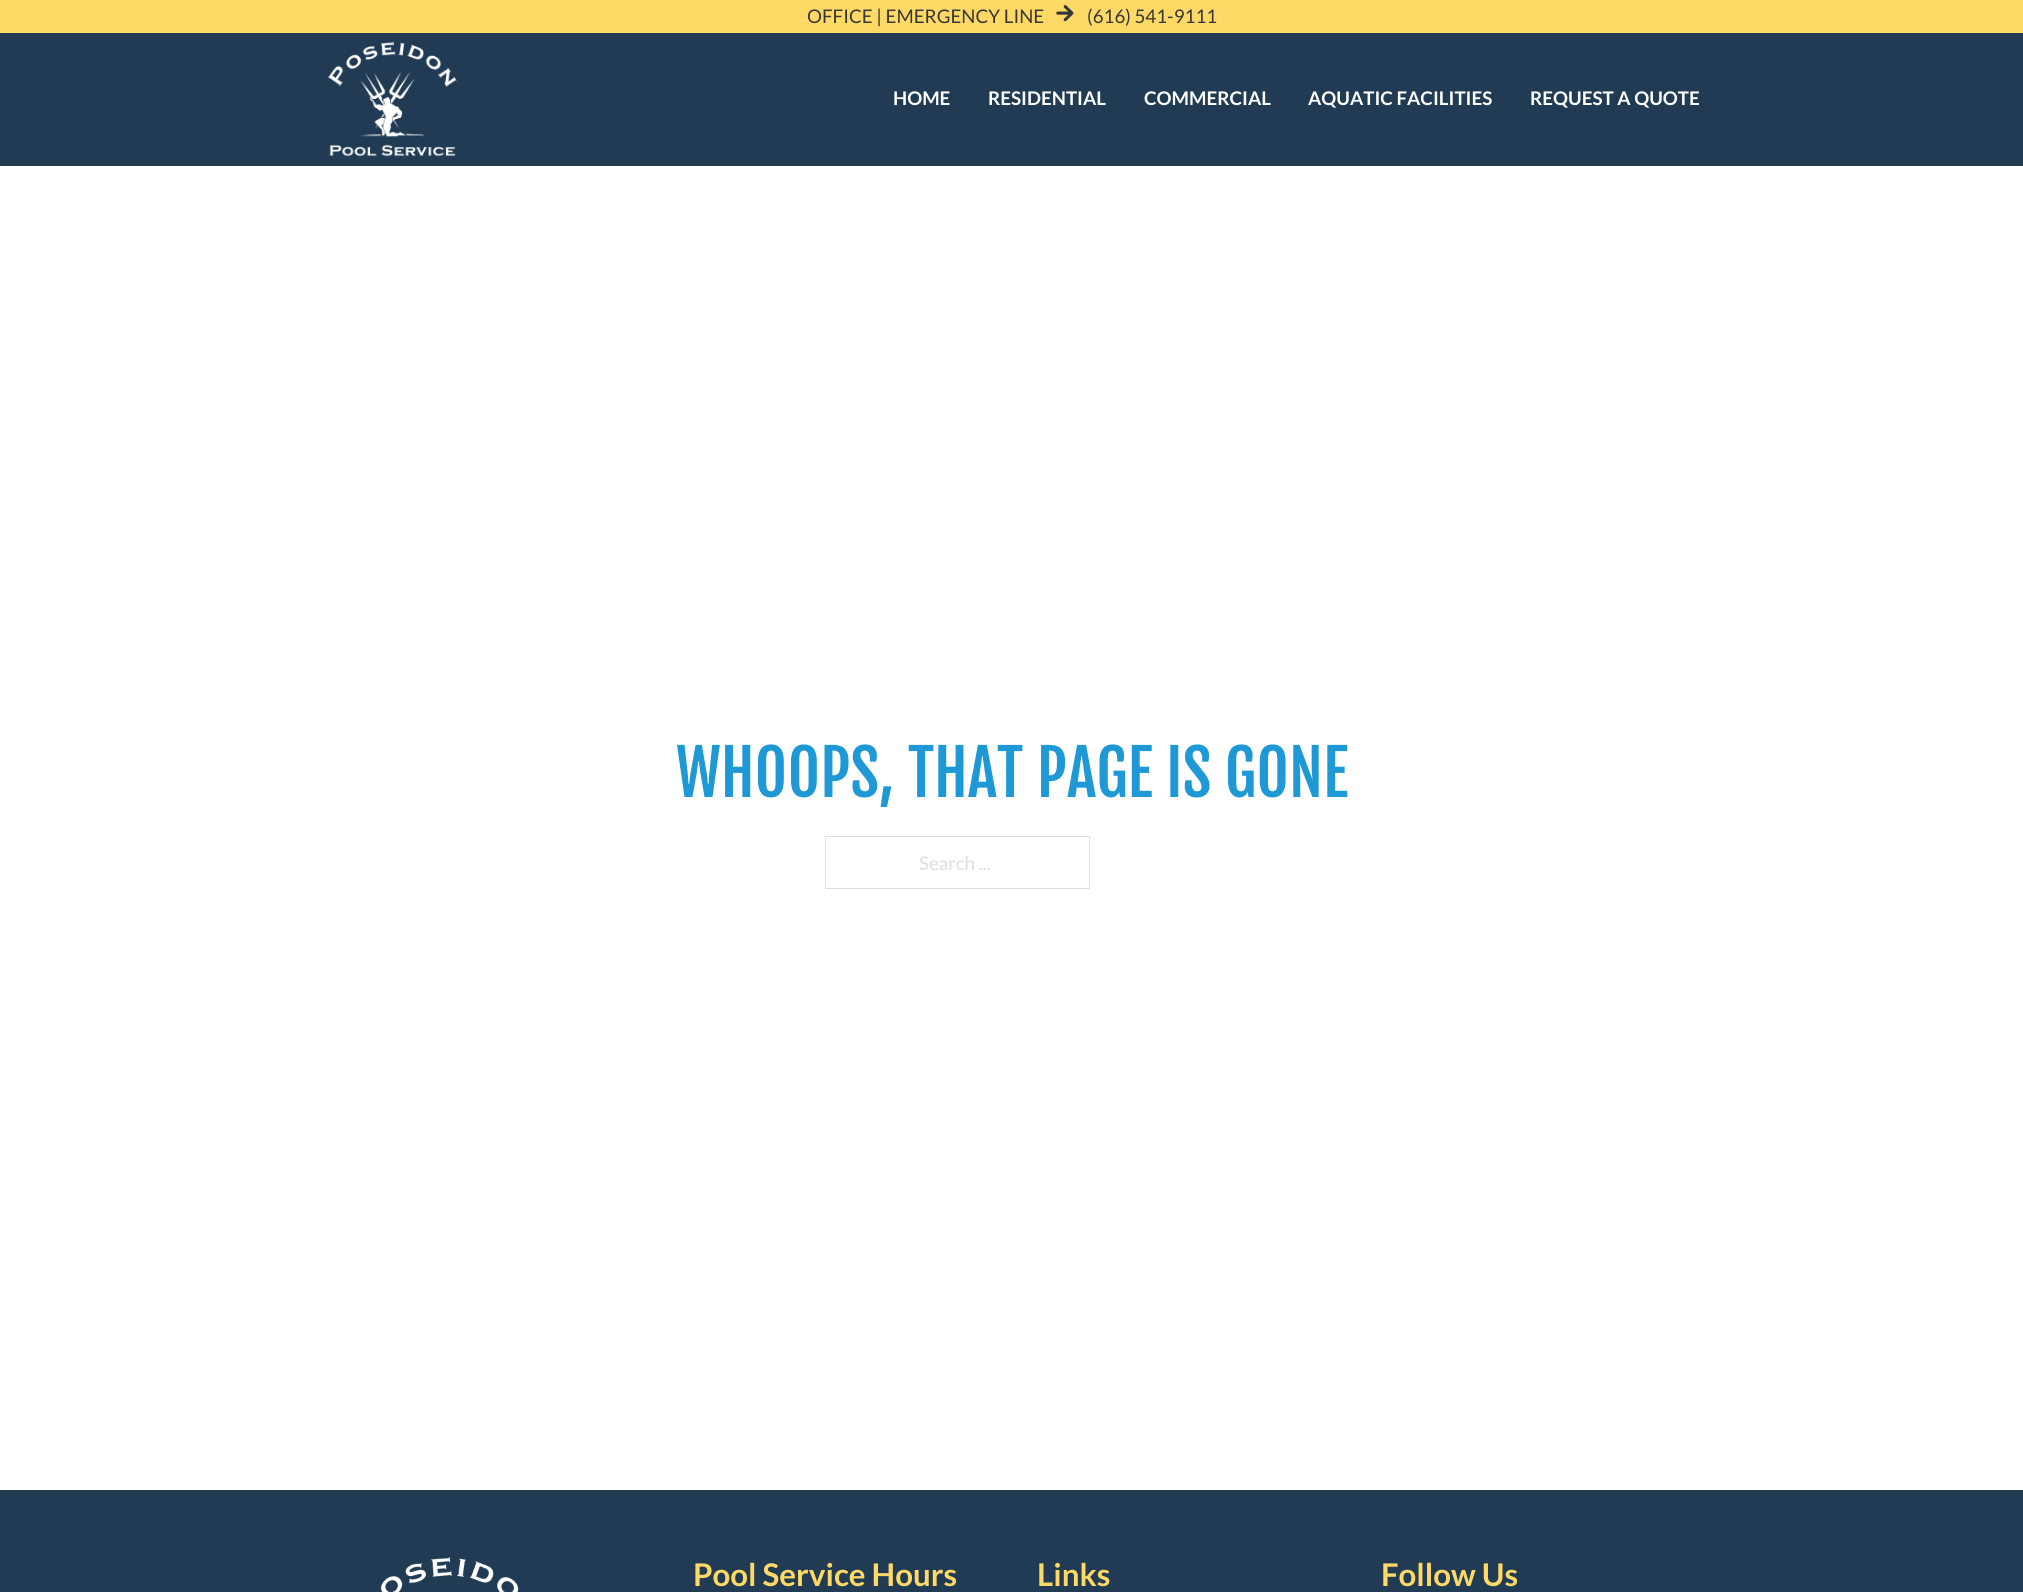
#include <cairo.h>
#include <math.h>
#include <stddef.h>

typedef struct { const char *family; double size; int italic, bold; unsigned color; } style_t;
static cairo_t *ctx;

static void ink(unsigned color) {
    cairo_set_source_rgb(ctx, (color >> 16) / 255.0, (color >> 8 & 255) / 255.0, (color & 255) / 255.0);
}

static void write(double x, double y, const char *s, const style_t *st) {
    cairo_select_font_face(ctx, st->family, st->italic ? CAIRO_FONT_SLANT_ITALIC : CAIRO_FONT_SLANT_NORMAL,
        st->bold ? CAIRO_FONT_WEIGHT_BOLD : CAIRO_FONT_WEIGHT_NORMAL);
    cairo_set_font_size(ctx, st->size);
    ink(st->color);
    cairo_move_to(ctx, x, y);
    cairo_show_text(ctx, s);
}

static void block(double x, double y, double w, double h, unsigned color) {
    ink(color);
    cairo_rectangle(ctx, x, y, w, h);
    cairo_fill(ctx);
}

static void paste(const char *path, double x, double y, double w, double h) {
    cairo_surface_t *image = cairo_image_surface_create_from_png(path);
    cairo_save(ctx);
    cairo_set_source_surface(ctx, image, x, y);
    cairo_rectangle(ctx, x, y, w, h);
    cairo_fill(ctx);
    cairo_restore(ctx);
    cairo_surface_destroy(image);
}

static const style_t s1 = {"Lato", 18.75, 0, 0, 0x363636};
static const style_t s2 = {"Lato", 18.75, 0, 1, 0xffffff};
static const style_t s3 = {"Fjalla One", 62.5, 0, 0, 0x1f99d5};
static const style_t s4 = {"Lato", 18.75, 0, 0, 0xdddedf};
static const style_t s5 = {"Lato", 31.25, 0, 1, 0xffd966};

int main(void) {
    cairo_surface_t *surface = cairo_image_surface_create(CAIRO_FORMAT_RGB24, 2023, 1592);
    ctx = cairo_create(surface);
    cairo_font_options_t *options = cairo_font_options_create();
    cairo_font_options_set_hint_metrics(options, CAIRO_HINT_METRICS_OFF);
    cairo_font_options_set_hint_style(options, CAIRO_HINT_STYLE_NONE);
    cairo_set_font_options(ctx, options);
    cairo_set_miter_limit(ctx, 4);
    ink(0xffffff);
    cairo_paint(ctx);
    block(0, 0, 2023, 33, 0xffd966);
    write(807, 23, "OFFICE | EMERGENCY LINE", &s1);
    paste("pic1.png", 1056, 5, 18, 17);
    write(1087, 23, "(616) 541-9111", &s1);
    block(0, 33, 2023, 133, 0x203b53);
    paste("pic2.png", 327, 41, 130, 116);
    write(893, 105, "HOME", &s2);
    write(988, 105, "RESIDENTIAL", &s2);
    write(1144, 105, "COMMERCIAL", &s2);
    write(1308, 105, "AQUATIC FACILITIES", &s2);
    write(1530, 105, "REQUEST A QUOTE", &s2);
    write(676, 797, "WHOOPS, THAT PAGE IS GONE", &s3);
    cairo_rectangle(ctx, 825.5, 836.5, 264, 52);
    ink(0xdddedf);
    cairo_set_line_width(ctx, 1);
    cairo_stroke(ctx);
    write(919, 870, "Search ...", &s4);
    block(0, 1490, 2023, 102, 0x203b53);
    paste("pic3.png", 380, 1556, 139, 36);
    write(693, 1586, "Pool Service Hours", &s5);
    write(1037, 1586, "Links", &s5);
    write(1381, 1586, "Follow Us", &s5);
    cairo_surface_write_to_png(surface, "screenshot.png");
    cairo_font_options_destroy(options);
    cairo_destroy(ctx);
    cairo_surface_destroy(surface);
    return 0;
}
